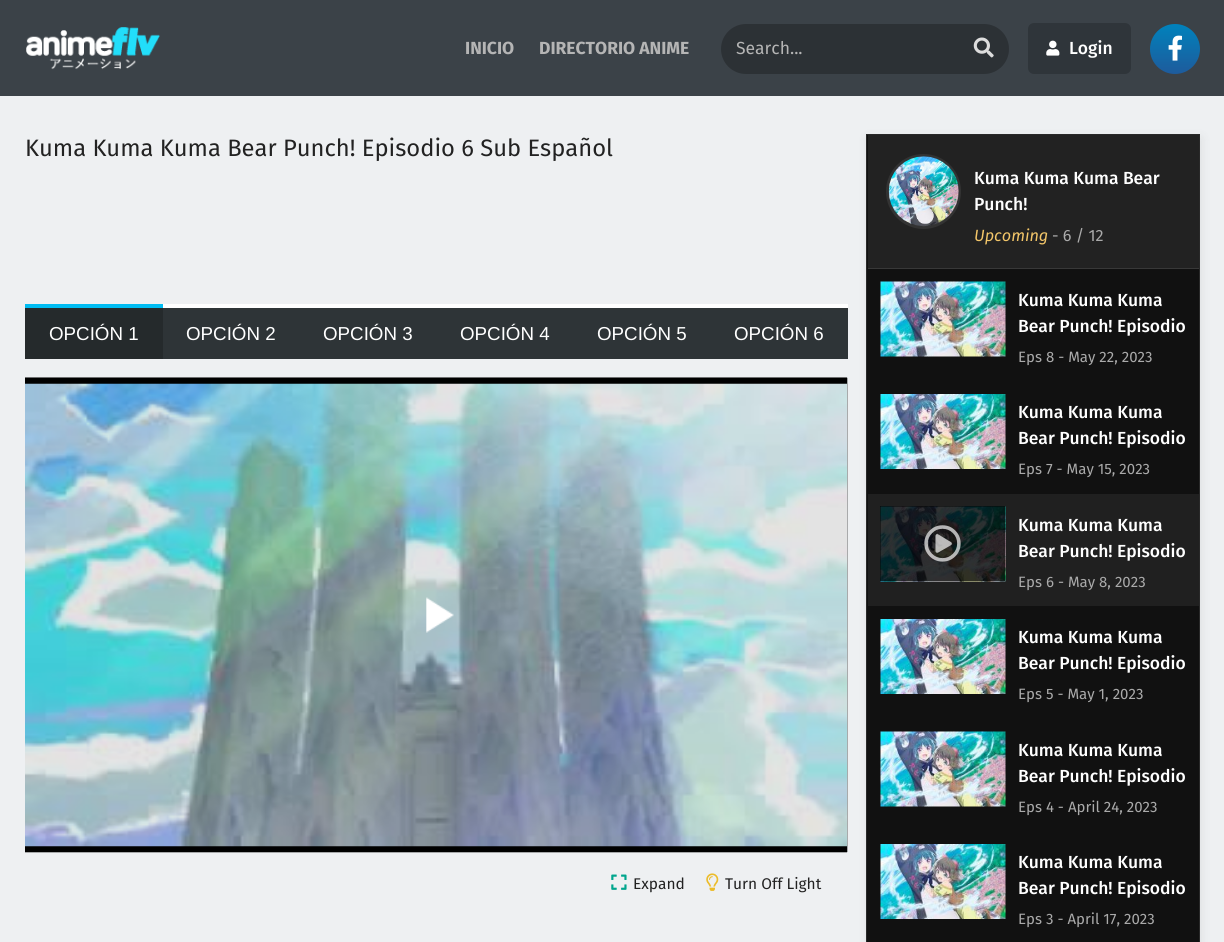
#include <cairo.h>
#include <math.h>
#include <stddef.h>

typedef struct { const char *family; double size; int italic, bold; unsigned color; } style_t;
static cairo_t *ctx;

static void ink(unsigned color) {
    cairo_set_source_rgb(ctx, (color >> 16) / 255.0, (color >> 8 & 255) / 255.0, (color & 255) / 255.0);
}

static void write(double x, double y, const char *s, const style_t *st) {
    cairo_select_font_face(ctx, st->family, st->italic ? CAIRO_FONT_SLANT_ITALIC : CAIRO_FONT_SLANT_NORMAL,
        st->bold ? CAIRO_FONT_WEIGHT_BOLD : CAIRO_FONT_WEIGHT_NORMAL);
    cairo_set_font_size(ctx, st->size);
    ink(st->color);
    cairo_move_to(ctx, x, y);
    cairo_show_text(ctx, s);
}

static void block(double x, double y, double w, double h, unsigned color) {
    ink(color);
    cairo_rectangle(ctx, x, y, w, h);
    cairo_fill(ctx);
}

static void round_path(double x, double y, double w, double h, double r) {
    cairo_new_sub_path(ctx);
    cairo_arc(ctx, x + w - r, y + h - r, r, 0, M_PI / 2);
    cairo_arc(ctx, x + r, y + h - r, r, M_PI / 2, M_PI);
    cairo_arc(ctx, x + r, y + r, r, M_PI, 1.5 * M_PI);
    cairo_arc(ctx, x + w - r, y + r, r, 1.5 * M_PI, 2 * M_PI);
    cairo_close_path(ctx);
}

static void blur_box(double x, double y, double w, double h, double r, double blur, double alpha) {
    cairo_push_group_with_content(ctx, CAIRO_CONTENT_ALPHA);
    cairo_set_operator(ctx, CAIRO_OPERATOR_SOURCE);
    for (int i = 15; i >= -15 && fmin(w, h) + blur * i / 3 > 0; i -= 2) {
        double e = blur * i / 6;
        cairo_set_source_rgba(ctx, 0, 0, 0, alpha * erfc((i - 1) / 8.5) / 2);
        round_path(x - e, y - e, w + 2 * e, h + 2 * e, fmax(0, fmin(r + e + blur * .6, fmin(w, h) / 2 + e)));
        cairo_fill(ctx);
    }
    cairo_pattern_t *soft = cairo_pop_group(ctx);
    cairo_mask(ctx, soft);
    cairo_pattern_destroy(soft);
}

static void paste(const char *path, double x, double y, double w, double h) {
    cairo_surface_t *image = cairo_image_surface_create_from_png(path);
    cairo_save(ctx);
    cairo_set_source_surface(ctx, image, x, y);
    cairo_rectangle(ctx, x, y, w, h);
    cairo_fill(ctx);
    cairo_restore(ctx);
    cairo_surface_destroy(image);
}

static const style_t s1 = {"Fira Sans", 17.5, 0, 1, 0xb5b5b5};
static const style_t s2 = {"Fira Sans", 17.5, 0, 0, 0xb5b5b5};
static const style_t s3 = {"Fira Sans Medium", 17.5, 0, 0, 0xffffff};
static const style_t s4 = {"Fira Sans", 23.75, 0, 0, 0x222222};
static const style_t s5 = {"Liberation Sans", 18.75, 0, 0, 0xffffff};
static const style_t s6 = {"Fira Sans", 15.5, 0, 0, 0x222222};
static const style_t s7 = {"Fira Sans", 16.25, 1, 0, 0xf3c669};
static const style_t s8 = {"Fira Sans", 16.25, 0, 0, 0xaaaaaa};
static const style_t s9 = {"Fira Sans", 15, 0, 0, 0xaaaaaa};

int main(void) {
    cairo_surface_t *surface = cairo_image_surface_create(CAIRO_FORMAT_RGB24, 1224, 942);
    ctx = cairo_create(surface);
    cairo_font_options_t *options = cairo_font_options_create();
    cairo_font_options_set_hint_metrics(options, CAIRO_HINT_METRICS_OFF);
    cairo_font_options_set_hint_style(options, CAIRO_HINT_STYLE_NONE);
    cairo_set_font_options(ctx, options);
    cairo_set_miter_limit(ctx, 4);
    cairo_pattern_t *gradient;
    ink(0xeef0f2);
    cairo_paint(ctx);
    block(0, 0, 1224, 96, 0x3b4248);
    paste("pic1.png", 26, 27, 134, 43);
    write(465, 54, "INICIO", &s1);
    write(539, 54, "DIRECTORIO ANIME", &s1);
    ink(0x2c3135);
    round_path(721, 24, 288, 50, 25);
    cairo_fill(ctx);
    write(736, 54, "Search...", &s2);
    paste("pic2.png", 973, 37, 21, 21);
    ink(0x2f353a);
    round_path(1028, 23, 103, 51, 6);
    cairo_fill(ctx);
    paste("pic3.png", 1046, 40, 14, 16);
    write(1069, 54, "Login", &s3);
    gradient = cairo_pattern_create_linear(1175, 24, 1175, 74);
    cairo_pattern_add_color_stop_rgba(gradient, 0, 0, 0.51, 0.737, 1);
    cairo_pattern_add_color_stop_rgba(gradient, 1, 0.118, 0.357, 0.612, 1);
    cairo_set_source(ctx, gradient);
    cairo_pattern_destroy(gradient);
    cairo_new_path(ctx);
    cairo_arc(ctx, 1175, 49, 25, 0, 2 * M_PI);
    cairo_fill(ctx);
    paste("pic4.png", 1168, 35, 14, 26);
    write(25, 156, "Kuma Kuma Kuma Bear Punch! Episodio 6 Sub Español", &s4);
    block(25, 308, 138, 51, 0x252a2c);
    block(25, 304, 138, 4, 0x00bcf2);
    write(49, 340, "OPCIÓN 1", &s5);
    block(163, 308, 685, 51, 0x2e3437);
    block(163, 304, 685, 4, 0xffffff);
    write(186, 340, "OPCIÓN 2", &s5);
    write(323, 340, "OPCIÓN 3", &s5);
    write(460, 340, "OPCIÓN 4", &s5);
    write(597, 340, "OPCIÓN 5", &s5);
    write(734, 340, "OPCIÓN 6", &s5);
    paste("pic5.png", 25, 377, 823, 476);
    paste("pic6.png", 611, 874, 16, 16);
    write(633, 889, "Expand", &s6);
    paste("pic7.png", 706, 873, 13, 18);
    write(725, 889, "Turn Off Light", &s6);
    ink(0x313131);
    blur_box(868, 138, 333, 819, 0, 5, 0.1);
    ink(0x111111);
    cairo_rectangle(ctx, 866.5, 134.5, 333, 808);
    cairo_fill_preserve(ctx);
    ink(0x292929);
    cairo_set_line_width(ctx, 1);
    cairo_stroke(ctx);
    block(868, 135, 331, 133, 0x222222);
    block(868, 268, 331, 1, 0x383838);
    cairo_arc(ctx, 923.5, 191.5, 36, 0, 2 * M_PI);
    ink(0x333333);
    cairo_set_line_width(ctx, 3);
    cairo_stroke(ctx);
    paste("pic8.png", 888, 156, 71, 71);
    write(974, 184, "Kuma Kuma Kuma Bear", &s3);
    write(974, 210, "Punch!", &s3);
    write(974, 241, "Upcoming", &s7);
    write(1052, 241, "- 6 / 12", &s8);
    paste("pic9.png", 880, 281, 126, 76);
    write(1018, 306, "Kuma Kuma Kuma", &s3);
    write(1018, 332, "Bear Punch! Episodio", &s3);
    write(1018, 362, "Eps 8 - May 22, 2023", &s9);
    paste("pic10.png", 880, 394, 126, 75);
    write(1018, 418, "Kuma Kuma Kuma", &s3);
    write(1018, 444, "Bear Punch! Episodio", &s3);
    write(1018, 474, "Eps 7 - May 15, 2023", &s9);
    block(868, 494, 331, 112, 0x202020);
    block(880, 506, 125, 75, 0x060606);
    paste("pic11.png", 880, 506, 126, 76);
    paste("pic12.png", 924, 525, 37, 37);
    write(1018, 531, "Kuma Kuma Kuma", &s3);
    write(1018, 557, "Bear Punch! Episodio", &s3);
    write(1018, 587, "Eps 6 - May 8, 2023", &s9);
    paste("pic10.png", 880, 619, 126, 75);
    write(1018, 643, "Kuma Kuma Kuma", &s3);
    write(1018, 669, "Bear Punch! Episodio", &s3);
    write(1018, 699, "Eps 5 - May 1, 2023", &s9);
    paste("pic9.png", 880, 731, 126, 76);
    write(1018, 756, "Kuma Kuma Kuma", &s3);
    write(1018, 782, "Bear Punch! Episodio", &s3);
    write(1018, 812, "Eps 4 - April 24, 2023", &s9);
    paste("pic10.png", 880, 844, 126, 75);
    write(1018, 868, "Kuma Kuma Kuma", &s3);
    write(1018, 894, "Bear Punch! Episodio", &s3);
    write(1018, 924, "Eps 3 - April 17, 2023", &s9);
    cairo_surface_write_to_png(surface, "screenshot.png");
    cairo_font_options_destroy(options);
    cairo_destroy(ctx);
    cairo_surface_destroy(surface);
    return 0;
}
